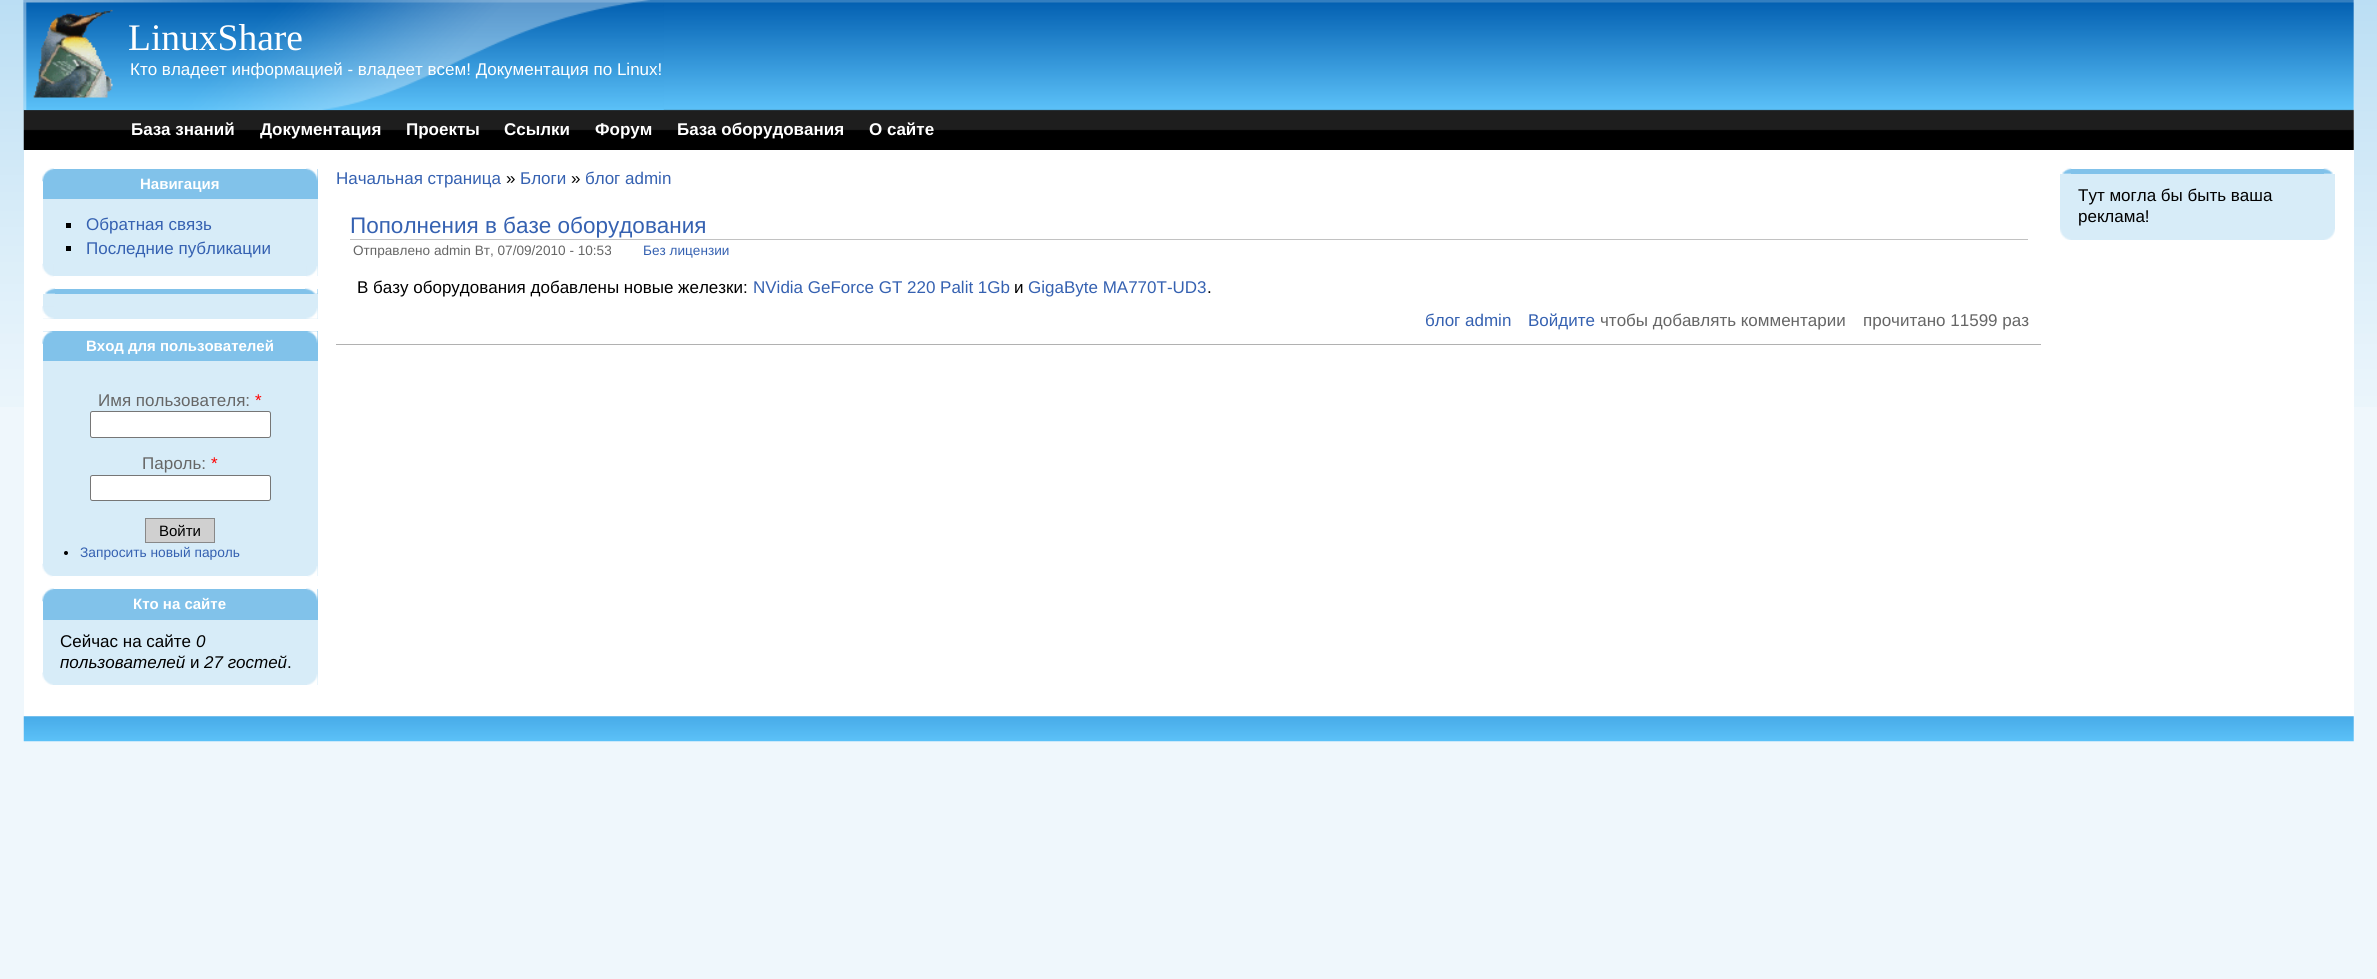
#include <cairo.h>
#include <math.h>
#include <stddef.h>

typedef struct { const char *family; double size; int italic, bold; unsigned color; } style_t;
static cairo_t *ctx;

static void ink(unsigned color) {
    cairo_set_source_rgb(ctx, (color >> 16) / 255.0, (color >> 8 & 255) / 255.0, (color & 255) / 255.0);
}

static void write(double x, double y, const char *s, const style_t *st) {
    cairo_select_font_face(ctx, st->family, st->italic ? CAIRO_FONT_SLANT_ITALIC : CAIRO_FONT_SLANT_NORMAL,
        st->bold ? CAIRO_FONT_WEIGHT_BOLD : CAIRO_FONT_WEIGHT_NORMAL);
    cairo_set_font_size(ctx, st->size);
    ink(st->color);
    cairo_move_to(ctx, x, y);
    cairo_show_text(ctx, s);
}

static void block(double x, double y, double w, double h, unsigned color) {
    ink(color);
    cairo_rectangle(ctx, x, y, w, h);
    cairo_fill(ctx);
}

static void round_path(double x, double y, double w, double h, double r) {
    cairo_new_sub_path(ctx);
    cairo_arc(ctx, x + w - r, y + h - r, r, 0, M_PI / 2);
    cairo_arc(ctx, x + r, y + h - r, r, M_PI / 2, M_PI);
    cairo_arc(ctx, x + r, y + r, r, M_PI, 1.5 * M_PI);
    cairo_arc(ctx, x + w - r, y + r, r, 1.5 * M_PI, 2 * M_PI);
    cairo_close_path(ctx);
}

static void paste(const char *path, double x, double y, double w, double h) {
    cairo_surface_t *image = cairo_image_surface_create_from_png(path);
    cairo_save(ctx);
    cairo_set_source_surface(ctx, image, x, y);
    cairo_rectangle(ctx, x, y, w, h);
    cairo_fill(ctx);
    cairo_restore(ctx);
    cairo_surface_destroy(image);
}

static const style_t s1 = {"Liberation Serif", 37.5, 0, 0, 0xffffff};
static const style_t s2 = {"Liberation Sans", 17, 0, 0, 0xffffff};
static const style_t s3 = {"Liberation Sans", 17, 0, 1, 0xffffff};
static const style_t s4 = {"Liberation Sans", 15, 0, 1, 0xffffff};
static const style_t s5 = {"Liberation Sans", 17, 0, 0, 0x3561b1};
static const style_t s6 = {"Liberation Sans", 17, 0, 0, 0x666666};
static const style_t s7 = {"Liberation Sans", 17, 0, 0, 0xff0000};
static const style_t s8 = {"Liberation Sans", 15, 0, 0, 0x000000};
static const style_t s9 = {"Liberation Sans", 13.75, 0, 0, 0x3561b1};
static const style_t s10 = {"Liberation Sans", 17, 0, 0, 0x000000};
static const style_t s11 = {"Liberation Sans", 17, 1, 0, 0x000000};
static const style_t s12 = {"Liberation Sans", 22.5, 0, 0, 0x3561b1};
static const style_t s13 = {"Liberation Sans", 13.6, 0, 0, 0x666666};
static const style_t s14 = {"Liberation Sans", 13.6, 0, 0, 0x3561b1};

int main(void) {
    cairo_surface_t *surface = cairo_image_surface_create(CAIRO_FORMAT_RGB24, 2377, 979);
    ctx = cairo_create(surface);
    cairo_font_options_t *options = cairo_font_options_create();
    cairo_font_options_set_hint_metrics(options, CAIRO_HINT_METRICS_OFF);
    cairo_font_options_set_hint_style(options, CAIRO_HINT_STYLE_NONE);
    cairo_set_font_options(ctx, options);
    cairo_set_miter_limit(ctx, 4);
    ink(0xeff7fc);
    cairo_paint(ctx);
    paste("pic1.png", 0, 0, 2377, 407);
    block(24, 0, 2330, 741, 0xffffff);
    paste("pic2.png", 23, 0, 2331, 150);
    paste("pic3.png", 23, 0, 641, 110);
    paste("pic4.png", 33, 9, 80, 89);
    write(128, 50, "LinuxShare", &s1);
    write(130, 75, "Кто владеет информацией - владеет всем! Документация по Linux!", &s2);
    write(131, 135, "База знаний", &s3);
    write(260, 135, "Документация", &s3);
    write(406, 135, "Проекты", &s3);
    write(504, 135, "Ссылки", &s3);
    write(595, 135, "Форум", &s3);
    write(677, 135, "База оборудования", &s3);
    write(869, 135, "О сайте", &s3);
    block(43, 169, 275, 30, 0x81c2ea);
    paste("pic5.png", 42, 168, 12, 14);
    paste("pic6.png", 306, 168, 12, 13);
    write(140, 189, "Навигация", &s4);
    block(43, 199, 275, 77, 0xd7ecf8);
    paste("pic7.png", 42, 263, 12, 14);
    block(66, 223, 5, 5, 0x000000);
    write(86, 230, "Обратная связь", &s5);
    block(66, 246, 5, 5, 0x000000);
    write(86, 254, "Последние публикации", &s5);
    paste("pic8.png", 306, 266, 12, 11);
    paste("pic9.png", 43, 288, 12, 6);
    block(55, 289, 263, 5, 0x81c2ea);
    paste("pic10.png", 305, 288, 13, 6);
    block(43, 294, 275, 25, 0xd7ecf8);
    paste("pic11.png", 42, 306, 12, 13);
    paste("pic12.png", 306, 308, 12, 11);
    block(43, 331, 275, 30, 0x81c2ea);
    paste("pic13.png", 42, 331, 11, 13);
    paste("pic14.png", 307, 331, 11, 12);
    write(86, 351, "Вход для пользователей", &s4);
    block(43, 361, 275, 215, 0xd7ecf8);
    paste("pic15.png", 42, 563, 11, 14);
    write(98, 406, "Имя пользователя:", &s6);
    write(255, 406, "*", &s7);
    ink(0xffffff);
    round_path(90.5, 411.5, 180, 26, 2);
    cairo_fill_preserve(ctx);
    ink(0x767676);
    cairo_set_line_width(ctx, 1);
    cairo_stroke(ctx);
    write(142, 469, "Пароль:", &s6);
    write(211, 469, "*", &s7);
    ink(0xffffff);
    round_path(90.5, 475.5, 180, 25, 2);
    cairo_fill_preserve(ctx);
    ink(0x767676);
    cairo_stroke(ctx);
    ink(0xd0d0d0);
    cairo_rectangle(ctx, 145.5, 518.5, 69, 24);
    cairo_fill_preserve(ctx);
    ink(0x888888);
    cairo_stroke(ctx);
    write(159, 536, "Войти", &s8);
    cairo_new_path(ctx);
    cairo_arc(ctx, 66, 553, 2, 0, 2 * M_PI);
    cairo_fill(ctx);
    write(80, 557, "Запросить новый пароль", &s9);
    paste("pic16.png", 307, 566, 11, 11);
    block(43, 589, 275, 31, 0x81c2ea);
    paste("pic5.png", 42, 588, 12, 14);
    paste("pic6.png", 306, 588, 12, 13);
    write(133, 609, "Кто на сайте", &s4);
    block(43, 620, 275, 65, 0xd7ecf8);
    paste("pic17.png", 42, 672, 11, 13);
    write(60, 647, "Сейчас на сайте", &s10);
    write(196, 647, "0", &s11);
    write(60, 668, "пользователей", &s11);
    write(190, 668, "и", &s10);
    write(204, 668, "27 гостей", &s11);
    write(287, 668, ".", &s10);
    paste("pic18.png", 307, 674, 11, 11);
    write(336, 184, "Начальная страница", &s5);
    write(506, 184, "»", &s10);
    write(520, 184, "Блоги", &s5);
    write(571, 184, "»", &s10);
    write(585, 184, "блог admin", &s5);
    block(336, 344, 1705, 1, 0xb1b1b1);
    block(350, 239, 1678, 1, 0xc2c2c2);
    write(350, 233, "Пополнения в базе оборудования", &s12);
    write(353, 255, "Отправлено admin Вт, 07/09/2010 - 10:53", &s13);
    write(643, 255, "Без лицензии", &s14);
    write(357, 293, "В базу оборудования добавлены новые железки:", &s10);
    write(753, 293, "NVidia GeForce GT 220 Palit 1Gb", &s5);
    write(1014, 293, "и", &s10);
    write(1028, 293, "GigaByte MA770T-UD3", &s5);
    write(1207, 293, ".", &s10);
    write(1425, 326, "блог admin", &s5);
    write(1528, 326, "Войдите", &s5);
    write(1600, 326, "чтобы добавлять комментарии", &s6);
    write(1863, 326, "прочитано 11599 раз", &s6);
    paste("pic19.png", 2060, 168, 12, 6);
    block(2071, 169, 253, 5, 0x81c2ea);
    paste("pic20.png", 2323, 168, 12, 6);
    block(2060, 174, 11, 54, 0xd7ecf8);
    paste("pic21.png", 2060, 227, 11, 13);
    block(2071, 174, 253, 66, 0xd7ecf8);
    write(2078, 201, "Тут могла бы быть ваша", &s10);
    write(2078, 222, "реклама!", &s10);
    block(2324, 174, 11, 55, 0xd7ecf8);
    paste("pic22.png", 2324, 229, 11, 11);
    paste("pic23.png", 23, 716, 2331, 26);
    cairo_surface_write_to_png(surface, "screenshot.png");
    cairo_font_options_destroy(options);
    cairo_destroy(ctx);
    cairo_surface_destroy(surface);
    return 0;
}
